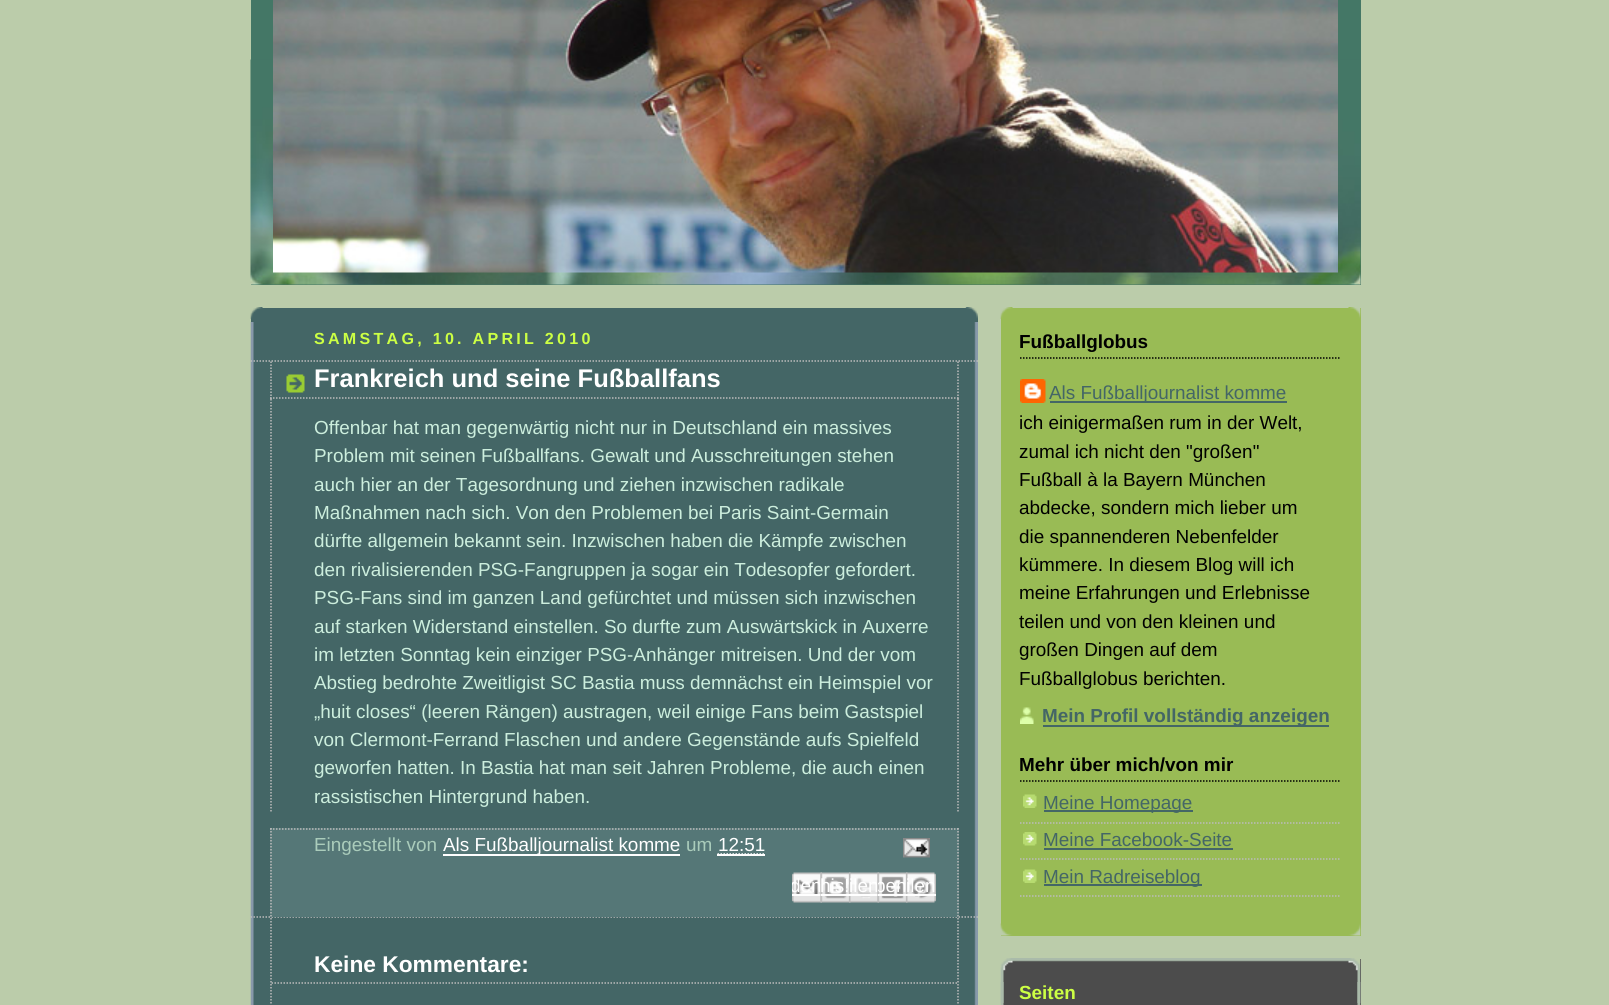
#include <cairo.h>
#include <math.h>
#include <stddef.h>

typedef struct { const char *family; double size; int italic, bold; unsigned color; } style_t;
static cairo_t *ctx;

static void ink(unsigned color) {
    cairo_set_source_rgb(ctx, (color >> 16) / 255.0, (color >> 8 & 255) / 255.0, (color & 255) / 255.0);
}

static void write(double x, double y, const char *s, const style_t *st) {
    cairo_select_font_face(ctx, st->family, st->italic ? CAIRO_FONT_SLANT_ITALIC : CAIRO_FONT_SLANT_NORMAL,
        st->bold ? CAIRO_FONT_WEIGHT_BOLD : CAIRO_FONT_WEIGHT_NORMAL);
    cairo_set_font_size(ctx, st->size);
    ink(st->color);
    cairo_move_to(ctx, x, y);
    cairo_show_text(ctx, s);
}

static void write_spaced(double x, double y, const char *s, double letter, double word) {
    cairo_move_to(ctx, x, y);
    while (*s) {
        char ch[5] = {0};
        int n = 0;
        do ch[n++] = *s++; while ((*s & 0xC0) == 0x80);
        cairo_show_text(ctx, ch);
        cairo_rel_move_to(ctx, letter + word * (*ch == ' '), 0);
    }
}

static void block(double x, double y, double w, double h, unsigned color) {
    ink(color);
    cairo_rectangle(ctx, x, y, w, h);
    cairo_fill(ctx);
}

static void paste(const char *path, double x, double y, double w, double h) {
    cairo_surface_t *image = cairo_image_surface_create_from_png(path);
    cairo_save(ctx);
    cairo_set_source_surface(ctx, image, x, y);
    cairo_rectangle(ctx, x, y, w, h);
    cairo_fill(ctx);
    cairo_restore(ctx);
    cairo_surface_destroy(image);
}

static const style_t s1 = {"Liberation Sans", 25.5, 0, 1, 0xffffff};
static const style_t s2 = {"Liberation Sans", 18.9, 0, 0, 0xcceedd};
static const style_t s3 = {"Liberation Sans", 18.9, 0, 0, 0xaaccbb};
static const style_t s4 = {"Liberation Sans", 18.9, 0, 0, 0xffffff};
static const style_t s5 = {"Liberation Sans", 22.75, 0, 1, 0xffffff};
static const style_t s6 = {"Liberation Sans", 18.9, 0, 1, 0x000000};
static const style_t s7 = {"Liberation Sans", 18.9, 0, 0, 0x446666};
static const style_t s8 = {"Liberation Sans", 18.9, 0, 0, 0x000000};
static const style_t s9 = {"Liberation Sans", 18.9, 0, 1, 0x446666};
static const style_t s10 = {"Liberation Sans", 18.9, 0, 1, 0xccff44};

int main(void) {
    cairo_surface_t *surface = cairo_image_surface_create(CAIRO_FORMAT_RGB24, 1609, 1005);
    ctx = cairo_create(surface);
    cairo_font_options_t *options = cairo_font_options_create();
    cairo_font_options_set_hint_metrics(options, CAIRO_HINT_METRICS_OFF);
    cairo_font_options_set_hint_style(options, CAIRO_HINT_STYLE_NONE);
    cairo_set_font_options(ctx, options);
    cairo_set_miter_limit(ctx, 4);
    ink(0xbbccaa);
    cairo_paint(ctx);
    block(251, 0, 1110, 285, 0x447766);
    paste("pic1.png", 250, 59, 1111, 226);
    paste("pic2.png", 273, 0, 1065, 273);
    block(251, 308, 727, 697, 0x446666);
    paste("pic3.png", 250, 307, 728, 13);
    paste("pic4.png", 250, 322, 728, 683);
    cairo_select_font_face(ctx, "Liberation Sans", CAIRO_FONT_SLANT_NORMAL, CAIRO_FONT_WEIGHT_BOLD);
    cairo_set_font_size(ctx, 16.1);
    ink(0xccff44);
    write_spaced(314, 344, "SAMSTAG, 10. APRIL 2010", 3.25, 0);
    cairo_new_path(ctx);
    cairo_move_to(ctx, 250.5, 361);
    cairo_line_to(ctx, 978, 361);
    ink(0xbbbbbb);
    cairo_set_line_width(ctx, 1.5);
    cairo_set_dash(ctx, (double[]){1.5, 1.5}, 2, 0);
    cairo_stroke(ctx);
    cairo_new_path(ctx);
    cairo_move_to(ctx, 250.5, 917);
    cairo_line_to(ctx, 978, 917);
    cairo_stroke(ctx);
    paste("pic5.png", 286, 374, 19, 19);
    cairo_new_path(ctx);
    cairo_move_to(ctx, 958, 361.5);
    cairo_line_to(ctx, 958, 399);
    cairo_stroke(ctx);
    cairo_new_path(ctx);
    cairo_move_to(ctx, 270, 398);
    cairo_line_to(ctx, 958.5, 398);
    cairo_stroke(ctx);
    cairo_new_path(ctx);
    cairo_move_to(ctx, 271, 361.5);
    cairo_line_to(ctx, 271, 399);
    cairo_stroke(ctx);
    write(314, 387, "Frankreich und seine Fußballfans", &s1);
    cairo_new_path(ctx);
    cairo_move_to(ctx, 958, 399);
    cairo_line_to(ctx, 958, 813);
    ink(0xbbbbbb);
    cairo_stroke(ctx);
    cairo_new_path(ctx);
    cairo_move_to(ctx, 271, 399);
    cairo_line_to(ctx, 271, 813);
    cairo_stroke(ctx);
    write(314, 434, "Offenbar hat man gegenwärtig nicht nur in Deutschland ein massives", &s2);
    write(314, 462, "Problem mit seinen Fußballfans. Gewalt und Ausschreitungen stehen", &s2);
    write(314, 491, "auch hier an der Tagesordnung und ziehen inzwischen radikale", &s2);
    write(314, 519, "Maßnahmen nach sich. Von den Problemen bei Paris Saint-Germain", &s2);
    write(314, 547, "dürfte allgemein bekannt sein. Inzwischen haben die Kämpfe zwischen", &s2);
    write(314, 576, "den rivalisierenden PSG-Fangruppen ja sogar ein Todesopfer gefordert.", &s2);
    write(314, 604, "PSG-Fans sind im ganzen Land gefürchtet und müssen sich inzwischen", &s2);
    write(314, 633, "auf starken Widerstand einstellen. So durfte zum Auswärtskick in Auxerre", &s2);
    write(314, 661, "im letzten Sonntag kein einziger PSG-Anhänger mitreisen. Und der vom", &s2);
    write(314, 689, "Abstieg bedrohte Zweitligist SC Bastia muss demnächst ein Heimspiel vor", &s2);
    write(314, 718, "„huit closes“ (leeren Rängen) austragen, weil einige Fans beim Gastspiel", &s2);
    write(314, 746, "von Clermont-Ferrand Flaschen und andere Gegenstände aufs Spielfeld", &s2);
    write(314, 774, "geworfen hatten. In Bastia hat man seit Jahren Probleme, die auch einen", &s2);
    write(314, 803, "rassistischen Hintergrund haben.", &s2);
    block(270, 828, 689, 89, 0x557777);
    cairo_new_path(ctx);
    cairo_move_to(ctx, 270, 829);
    cairo_line_to(ctx, 958.5, 829);
    ink(0xbbbbbb);
    cairo_stroke(ctx);
    cairo_new_path(ctx);
    cairo_move_to(ctx, 958, 828);
    cairo_line_to(ctx, 958, 916.5);
    cairo_stroke(ctx);
    cairo_new_path(ctx);
    cairo_move_to(ctx, 271, 828);
    cairo_line_to(ctx, 271, 916.5);
    cairo_stroke(ctx);
    write(314, 851, "Eingestellt von", &s3);
    block(443, 854, 237, 2, 0xffffff);
    write(443, 851, "Als Fußballjournalist komme", &s4);
    write(686, 851, "um", &s3);
    write(718, 851, "12:51", &s4);
    cairo_new_path(ctx);
    cairo_move_to(ctx, 717.5, 854);
    cairo_line_to(ctx, 765, 854);
    cairo_stroke(ctx);
    block(717, 854, 48, 2, 0xffffff);
    paste("pic6.png", 903, 838, 27, 20);
    paste("pic7.png", 792, 872, 30, 31);
    cairo_save(ctx);
    cairo_rectangle(ctx, 792, 873, 30, 30);
    cairo_clip(ctx);
    write(790, 892, "den", &s4);
    cairo_restore(ctx);
    block(792, 894, 30, 2, 0xffffff);
    paste("pic8.png", 820, 872, 31, 31);
    write(820, 892, "his!", &s4);
    block(821, 894, 30, 2, 0xffffff);
    paste("pic9.png", 849, 872, 30, 31);
    write(849, 892, "ilen", &s4);
    block(849, 894, 30, 2, 0xffffff);
    paste("pic10.png", 877, 872, 31, 31);
    cairo_save(ctx);
    cairo_rectangle(ctx, 878, 873, 30, 30);
    cairo_clip(ctx);
    write(875, 892, "ben", &s4);
    cairo_restore(ctx);
    block(878, 894, 30, 2, 0xffffff);
    paste("pic11.png", 906, 872, 30, 31);
    write(906, 892, "ilen", &s4);
    block(906, 894, 30, 2, 0xffffff);
    cairo_new_path(ctx);
    cairo_move_to(ctx, 958, 918);
    cairo_line_to(ctx, 958, 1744.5);
    ink(0xbbbbbb);
    cairo_stroke(ctx);
    cairo_new_path(ctx);
    cairo_move_to(ctx, 271, 918);
    cairo_line_to(ctx, 271, 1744.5);
    cairo_stroke(ctx);
    cairo_new_path(ctx);
    cairo_move_to(ctx, 271.5, 983);
    cairo_line_to(ctx, 957, 983);
    cairo_stroke(ctx);
    write(314, 972, "Keine Kommentare:", &s5);
    block(1001, 308, 360, 628, 0x99bb55);
    paste("pic12.png", 1000, 923, 361, 13);
    paste("pic13.png", 1000, 307, 361, 12);
    cairo_new_path(ctx);
    cairo_move_to(ctx, 1020, 358);
    cairo_line_to(ctx, 1341, 358);
    ink(0x000000);
    cairo_stroke(ctx);
    write(1019, 348, "Fußballglobus", &s6);
    paste("pic14.png", 1020, 379, 26, 24);
    block(1050, 401, 237, 2, 0x446666);
    write(1049, 399, "Als Fußballjournalist komme", &s7);
    write(1019, 429, "ich einigermaßen rum in der Welt,", &s8);
    write(1019, 458, "zumal ich nicht den \"großen\"", &s8);
    write(1019, 486, "Fußball à la Bayern München", &s8);
    write(1019, 514, "abdecke, sondern mich lieber um", &s8);
    write(1019, 543, "die spannenderen Nebenfelder", &s8);
    write(1019, 571, "kümmere. In diesem Blog will ich", &s8);
    write(1019, 599, "meine Erfahrungen und Erlebnisse", &s8);
    write(1019, 628, "teilen und von den kleinen und", &s8);
    write(1019, 656, "großen Dingen auf dem", &s8);
    write(1019, 685, "Fußballglobus berichten.", &s8);
    paste("pic15.png", 1020, 707, 14, 17);
    block(1043, 725, 286, 2, 0x446666);
    write(1042, 722, "Mein Profil vollständig anzeigen", &s9);
    cairo_new_path(ctx);
    cairo_move_to(ctx, 1020, 781);
    cairo_line_to(ctx, 1341, 781);
    ink(0x000000);
    cairo_stroke(ctx);
    write(1019, 771, "Mehr über mich/von mir", &s6);
    paste("pic16.png", 1023, 794, 14, 14);
    cairo_new_path(ctx);
    cairo_move_to(ctx, 1020, 823);
    cairo_line_to(ctx, 1341, 823);
    ink(0xbbbbbb);
    cairo_stroke(ctx);
    block(1044, 810, 149, 2, 0x446666);
    write(1043, 809, "Meine Homepage", &s7);
    paste("pic17.png", 1023, 832, 14, 14);
    cairo_new_path(ctx);
    cairo_move_to(ctx, 1020, 859);
    cairo_line_to(ctx, 1341, 859);
    ink(0xbbbbbb);
    cairo_stroke(ctx);
    write(1043, 846, "Meine Facebook-Seite", &s7);
    block(1044, 848, 189, 2, 0x446666);
    paste("pic16.png", 1023, 869, 14, 14);
    cairo_new_path(ctx);
    cairo_move_to(ctx, 1020, 896);
    cairo_line_to(ctx, 1341, 896);
    ink(0xbbbbbb);
    cairo_stroke(ctx);
    block(1044, 884, 158, 2, 0x446666);
    write(1043, 883, "Mein Radreiseblog", &s7);
    block(1003, 959, 358, 46, 0x4c4c4c);
    paste("pic18.png", 1000, 958, 361, 45);
    paste("pic19.png", 1000, 982, 361, 23);
    write(1019, 999, "Seiten", &s10);
    cairo_surface_write_to_png(surface, "screenshot.png");
    cairo_font_options_destroy(options);
    cairo_destroy(ctx);
    cairo_surface_destroy(surface);
    return 0;
}
